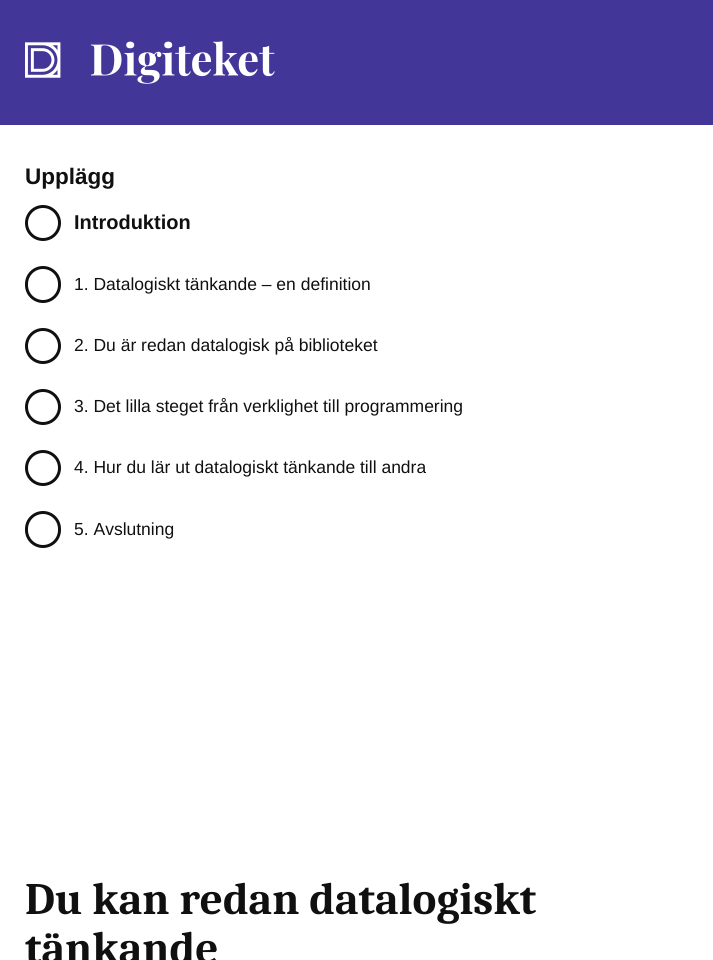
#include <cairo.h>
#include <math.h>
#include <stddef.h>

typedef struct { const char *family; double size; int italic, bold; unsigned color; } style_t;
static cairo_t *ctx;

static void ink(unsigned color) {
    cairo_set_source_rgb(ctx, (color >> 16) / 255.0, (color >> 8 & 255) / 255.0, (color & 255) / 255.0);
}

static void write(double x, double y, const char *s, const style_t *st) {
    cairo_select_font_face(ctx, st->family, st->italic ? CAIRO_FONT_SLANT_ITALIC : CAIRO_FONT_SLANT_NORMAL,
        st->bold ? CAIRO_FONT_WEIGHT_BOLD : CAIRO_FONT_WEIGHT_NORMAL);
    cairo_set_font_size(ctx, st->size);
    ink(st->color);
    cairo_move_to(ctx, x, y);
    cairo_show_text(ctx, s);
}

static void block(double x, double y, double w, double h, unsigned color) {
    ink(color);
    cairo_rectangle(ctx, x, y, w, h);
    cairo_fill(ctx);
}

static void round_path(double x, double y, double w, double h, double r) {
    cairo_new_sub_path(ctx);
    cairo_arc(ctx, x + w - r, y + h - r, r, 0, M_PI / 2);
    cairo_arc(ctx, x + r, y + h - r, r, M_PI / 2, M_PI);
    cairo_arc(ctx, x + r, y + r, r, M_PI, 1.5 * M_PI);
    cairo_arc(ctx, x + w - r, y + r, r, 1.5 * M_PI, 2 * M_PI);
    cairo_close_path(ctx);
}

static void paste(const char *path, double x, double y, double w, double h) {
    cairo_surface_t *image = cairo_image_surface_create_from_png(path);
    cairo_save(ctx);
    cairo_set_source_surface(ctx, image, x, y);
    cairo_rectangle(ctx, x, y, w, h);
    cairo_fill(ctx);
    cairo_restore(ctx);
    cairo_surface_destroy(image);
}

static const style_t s1 = {"Liberation Sans", 22.5, 0, 1, 0x101010};
static const style_t s2 = {"Liberation Sans", 20, 0, 1, 0x101010};
static const style_t s3 = {"Liberation Sans", 17.5, 0, 0, 0x101010};
static const style_t s4 = {"Caladea", 45, 0, 1, 0x101010};

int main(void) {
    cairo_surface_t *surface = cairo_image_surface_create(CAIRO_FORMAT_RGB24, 713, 960);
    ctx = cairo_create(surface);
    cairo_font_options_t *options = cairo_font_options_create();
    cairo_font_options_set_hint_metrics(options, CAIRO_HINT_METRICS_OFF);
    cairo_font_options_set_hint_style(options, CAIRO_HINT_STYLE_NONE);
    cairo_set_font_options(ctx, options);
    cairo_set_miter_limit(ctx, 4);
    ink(0xffffff);
    cairo_paint(ctx);
    block(0, 0, 713, 125, 0x423799);
    paste("pic1.png", 25, 41, 250, 43);
    write(25, 184, "Upplägg", &s1);
    cairo_new_path(ctx);
    cairo_arc(ctx, 43, 223, 16.5, 0, 2 * M_PI);
    cairo_set_line_width(ctx, 3);
    cairo_stroke(ctx);
    write(74, 229, "Introduktion", &s2);
    round_path(26.5, 267.5, 33, 34, 16.5);
    cairo_stroke(ctx);
    write(74, 290, "1. Datalogiskt tänkande – en definition", &s3);
    cairo_new_path(ctx);
    cairo_arc(ctx, 43, 346, 16.5, 0, 2 * M_PI);
    cairo_stroke(ctx);
    write(74, 351, "2. Du är redan datalogisk på biblioteket", &s3);
    cairo_new_path(ctx);
    cairo_arc(ctx, 43, 407, 16.5, 0, 2 * M_PI);
    cairo_stroke(ctx);
    write(74, 412, "3. Det lilla steget från verklighet till programmering", &s3);
    cairo_new_path(ctx);
    cairo_arc(ctx, 43, 468, 16.5, 0, 2 * M_PI);
    cairo_stroke(ctx);
    write(74, 473, "4. Hur du lär ut datalogiskt tänkande till andra", &s3);
    round_path(26.5, 512.5, 33, 34, 16.5);
    cairo_stroke(ctx);
    write(74, 535, "5. Avslutning", &s3);
    write(25, 914, "Du kan redan datalogiskt", &s4);
    write(25, 963, "tänkande", &s4);
    cairo_surface_write_to_png(surface, "screenshot.png");
    cairo_font_options_destroy(options);
    cairo_destroy(ctx);
    cairo_surface_destroy(surface);
    return 0;
}
